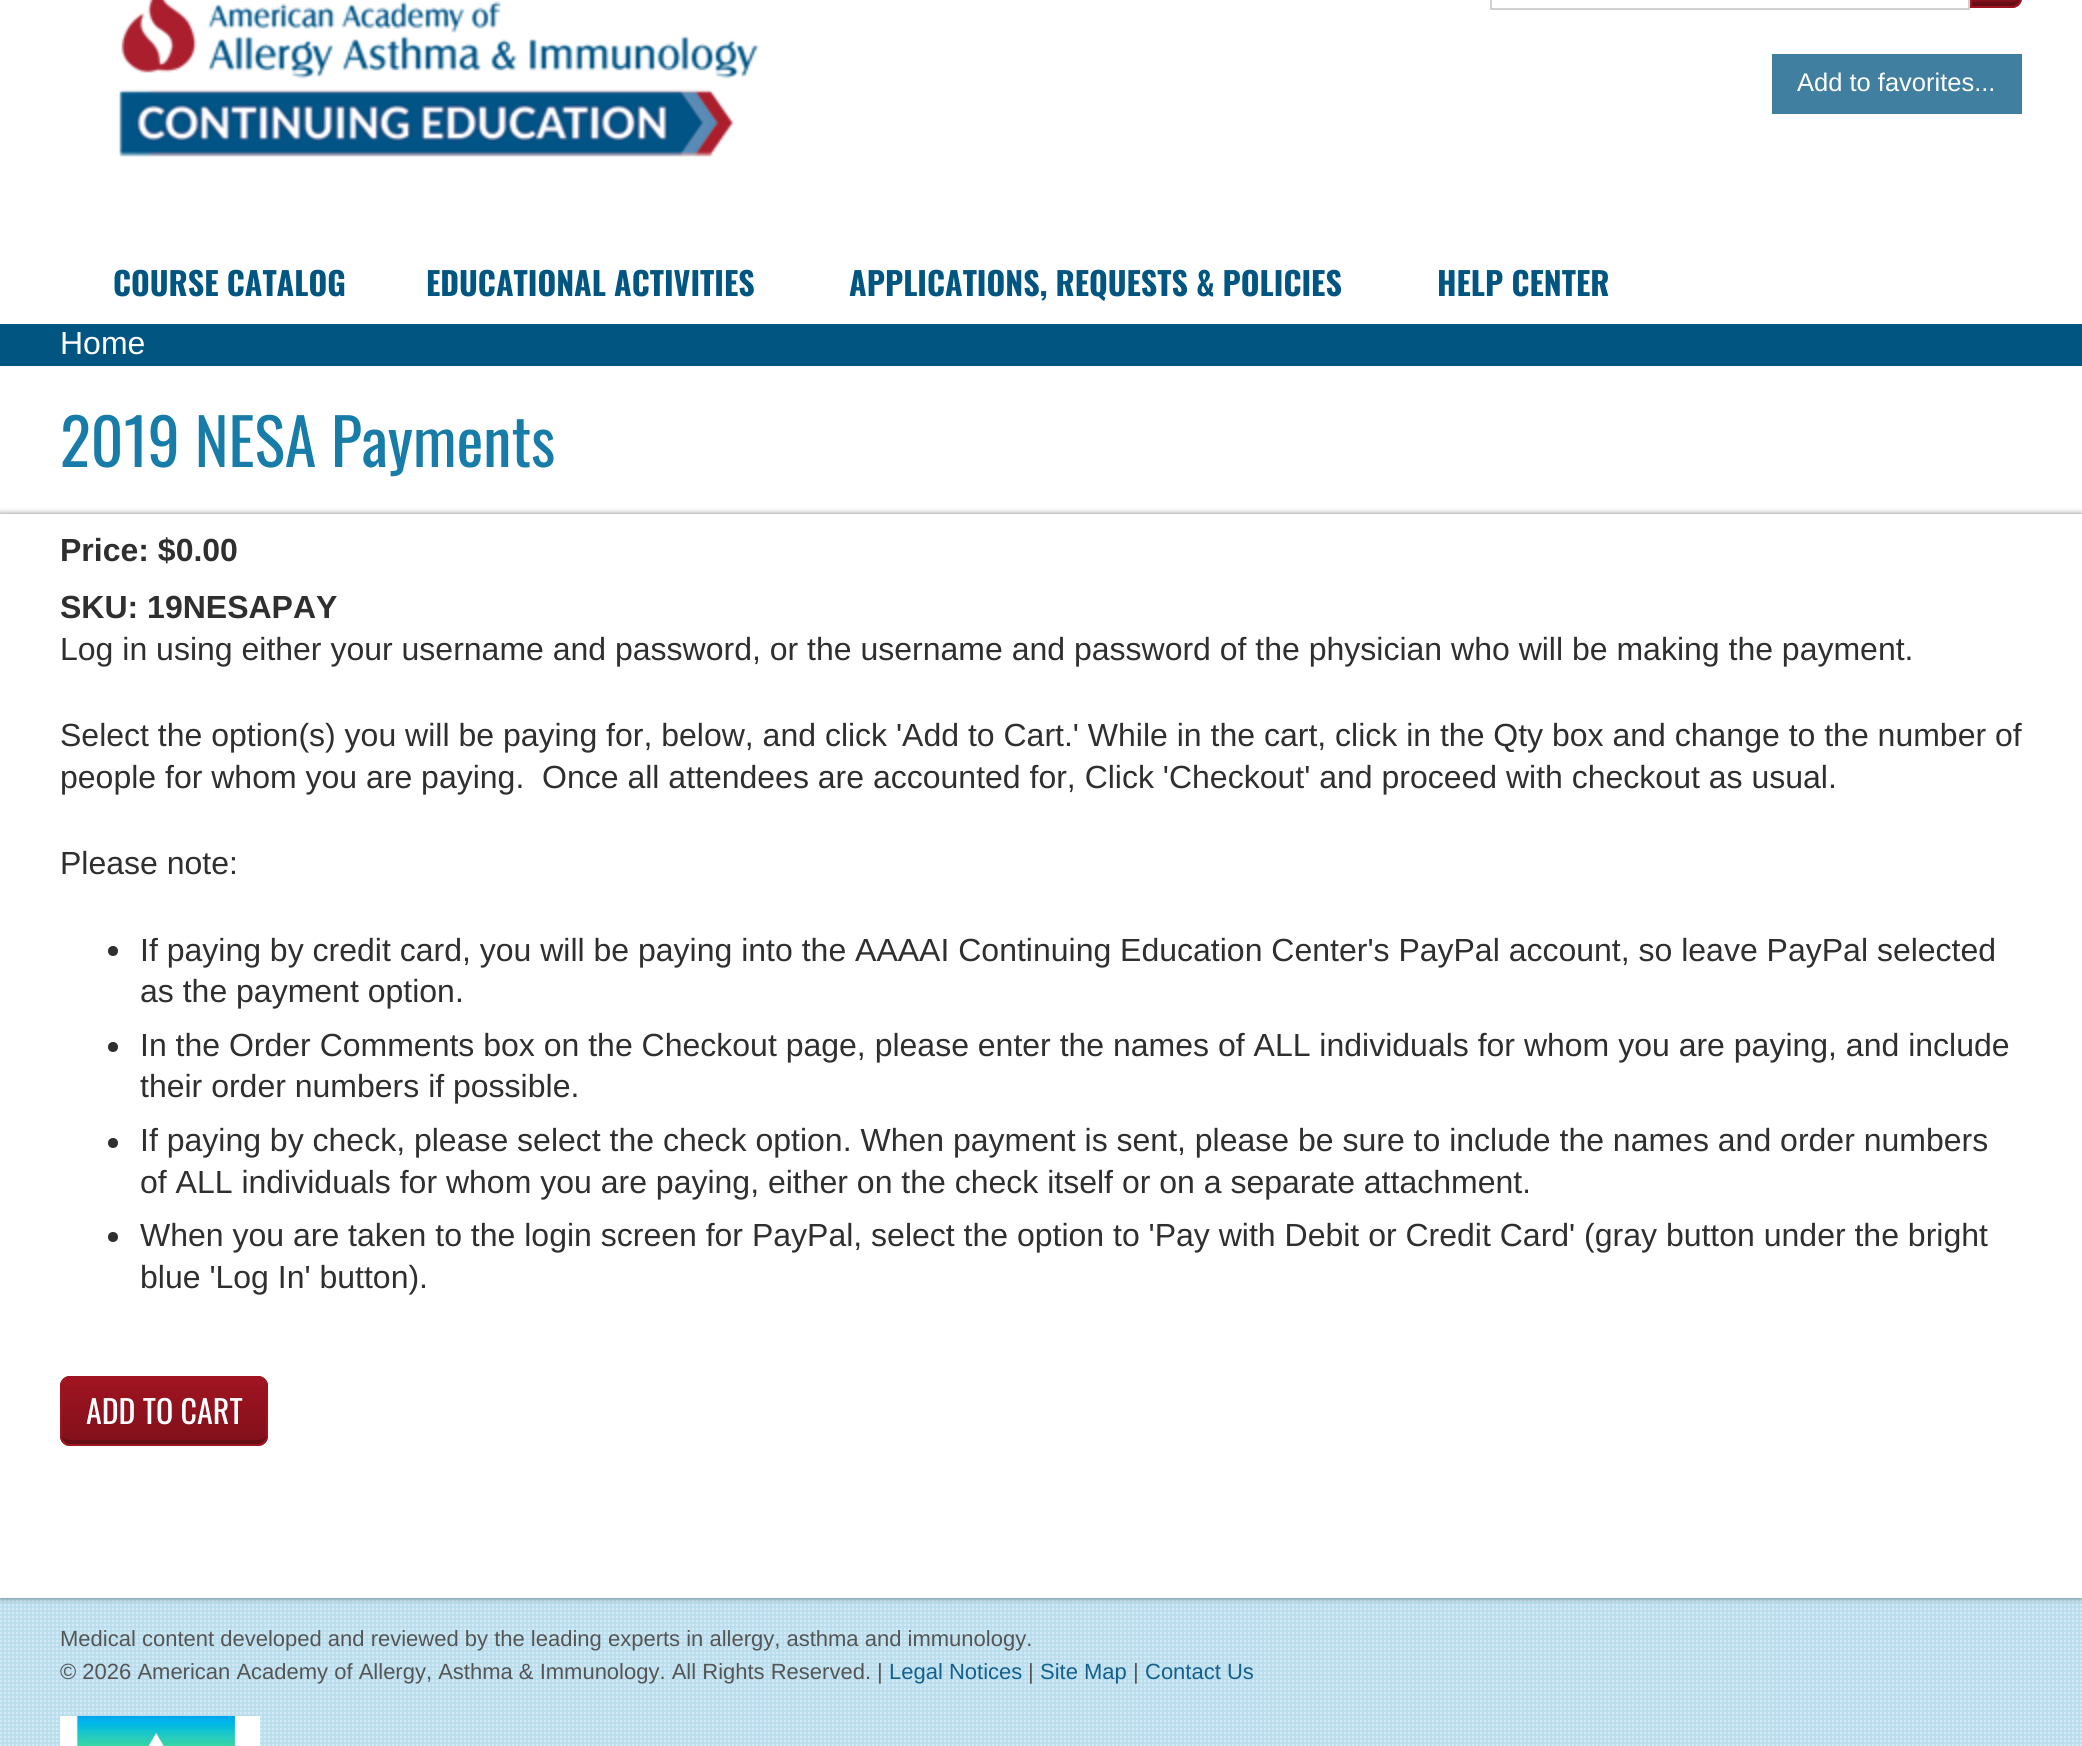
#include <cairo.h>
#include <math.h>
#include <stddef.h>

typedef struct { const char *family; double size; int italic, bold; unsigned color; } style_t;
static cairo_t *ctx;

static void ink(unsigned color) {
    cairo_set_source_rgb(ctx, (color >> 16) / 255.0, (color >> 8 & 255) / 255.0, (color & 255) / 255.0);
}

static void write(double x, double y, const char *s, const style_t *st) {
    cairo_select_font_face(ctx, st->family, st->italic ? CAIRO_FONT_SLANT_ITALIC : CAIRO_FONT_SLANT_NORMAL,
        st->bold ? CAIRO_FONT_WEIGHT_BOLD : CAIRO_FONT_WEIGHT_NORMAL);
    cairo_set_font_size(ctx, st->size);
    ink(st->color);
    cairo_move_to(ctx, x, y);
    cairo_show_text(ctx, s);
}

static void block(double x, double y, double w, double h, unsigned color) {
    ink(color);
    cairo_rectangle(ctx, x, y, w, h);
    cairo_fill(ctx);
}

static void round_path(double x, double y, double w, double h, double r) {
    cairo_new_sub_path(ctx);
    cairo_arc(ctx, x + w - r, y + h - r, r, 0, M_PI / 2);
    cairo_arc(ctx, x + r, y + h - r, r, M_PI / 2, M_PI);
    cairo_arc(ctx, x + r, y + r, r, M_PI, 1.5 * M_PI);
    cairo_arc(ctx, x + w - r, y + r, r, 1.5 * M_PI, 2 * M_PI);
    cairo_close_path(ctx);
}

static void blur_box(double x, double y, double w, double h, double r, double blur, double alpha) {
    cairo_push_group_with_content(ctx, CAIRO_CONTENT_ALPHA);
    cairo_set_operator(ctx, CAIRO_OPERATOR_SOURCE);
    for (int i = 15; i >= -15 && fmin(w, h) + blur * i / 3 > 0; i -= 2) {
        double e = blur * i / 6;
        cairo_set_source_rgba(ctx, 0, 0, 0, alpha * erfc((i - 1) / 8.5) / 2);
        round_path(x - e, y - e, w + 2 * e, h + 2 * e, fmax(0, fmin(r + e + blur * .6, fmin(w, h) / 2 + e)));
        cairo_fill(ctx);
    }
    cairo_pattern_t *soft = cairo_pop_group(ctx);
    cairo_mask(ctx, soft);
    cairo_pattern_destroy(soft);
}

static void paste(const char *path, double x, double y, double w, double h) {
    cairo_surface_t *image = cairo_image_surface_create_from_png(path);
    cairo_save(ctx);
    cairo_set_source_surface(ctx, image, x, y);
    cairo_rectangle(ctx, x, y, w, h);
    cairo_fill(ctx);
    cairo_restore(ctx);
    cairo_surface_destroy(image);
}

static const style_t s1 = {"Liberation Sans", 25.5, 0, 0, 0xffffff};
static const style_t s2 = {"Oswald", 32, 0, 1, 0x015581};
static const style_t s3 = {"Liberation Sans", 32, 0, 0, 0xffffff};
static const style_t s4 = {"Oswald", 64, 0, 0, 0x177ca8};
static const style_t s5 = {"Liberation Sans", 32, 0, 1, 0x2f2f2f};
static const style_t s6 = {"Liberation Sans", 32, 0, 0, 0x2f2f2f};
static const style_t s7 = {"Oswald", 32, 0, 0, 0xffffff};
static const style_t s8 = {"Liberation Sans", 22, 0, 0, 0x555555};
static const style_t s9 = {"Liberation Sans", 22, 0, 0, 0x13608d};

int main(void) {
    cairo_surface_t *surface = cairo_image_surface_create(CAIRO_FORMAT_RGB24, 2082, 1746);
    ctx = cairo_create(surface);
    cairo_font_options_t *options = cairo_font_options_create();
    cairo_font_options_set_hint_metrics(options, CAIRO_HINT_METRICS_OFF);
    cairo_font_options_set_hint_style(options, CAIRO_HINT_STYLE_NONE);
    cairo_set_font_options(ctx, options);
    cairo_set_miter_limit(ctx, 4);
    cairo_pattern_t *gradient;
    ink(0xffffff);
    cairo_paint(ctx);
    paste("pic1.png", 0, 1598, 2082, 148);
    paste("pic2.png", 119, 0, 640, 157);
    cairo_rectangle(ctx, 1491, -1, 478, 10);
    ink(0xd1d1d1);
    cairo_stroke(ctx);
    ink(0xa01421);
    cairo_new_path(ctx);
    cairo_move_to(ctx, 1970, -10);
    cairo_line_to(ctx, 2012, -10);
    cairo_curve_to(ctx, 2017.5, -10, 2022, -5.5, 2022, 0);
    cairo_line_to(ctx, 2022, -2);
    cairo_curve_to(ctx, 2022, 3.5, 2017.5, 8, 2012, 8);
    cairo_line_to(ctx, 1970, 8);
    cairo_close_path(ctx);
    cairo_fill(ctx);
    cairo_save(ctx);
    cairo_new_path(ctx);
    cairo_move_to(ctx, 1970, -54);
    cairo_line_to(ctx, 2012, -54);
    cairo_curve_to(ctx, 2017.5, -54, 2022, -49.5, 2022, -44);
    cairo_line_to(ctx, 2022, -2);
    cairo_curve_to(ctx, 2022, 3.5, 2017.5, 8, 2012, 8);
    cairo_line_to(ctx, 1970, 8);
    cairo_close_path(ctx);
    cairo_clip(ctx);
    gradient = cairo_pattern_create_linear(1996, 6, 1996, -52);
    cairo_pattern_add_color_stop_rgba(gradient, 0, 0, 0, 0, 0.2);
    cairo_pattern_add_color_stop_rgba(gradient, 1, 0, 0, 0, 0);
    cairo_set_source(ctx, gradient);
    cairo_pattern_destroy(gradient);
    cairo_rectangle(ctx, 1970, 0, 52, 6);
    cairo_fill(ctx);
    cairo_restore(ctx);
    cairo_set_source_rgba(ctx, 0, 0, 0, 0.2);
    cairo_new_path(ctx);
    cairo_move_to(ctx, 1972, 2);
    cairo_line_to(ctx, 1972, 6);
    cairo_line_to(ctx, 2012, 6);
    cairo_curve_to(ctx, 2016, 6, 2020, 3, 2020, -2);
    cairo_curve_to(ctx, 2018, 1, 2015, 2, 2012, 2);
    cairo_close_path(ctx);
    cairo_fill(ctx);
    cairo_new_path(ctx);
    cairo_move_to(ctx, 1971, -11);
    cairo_line_to(ctx, 2012, -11);
    cairo_curve_to(ctx, 2017, -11, 2021, -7, 2021, -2);
    cairo_curve_to(ctx, 2021, 3, 2017, 7, 2012, 7);
    cairo_line_to(ctx, 1971, 7);
    cairo_close_path(ctx);
    ink(0xa01421);
    cairo_stroke(ctx);
    block(1772, 54, 250, 60, 0x407fa0);
    write(1797, 91, "Add to favorites...", &s1);
    write(113, 296, "COURSE CATALOG", &s2);
    write(426, 296, "EDUCATIONAL ACTIVITIES", &s2);
    write(849, 296, "APPLICATIONS, REQUESTS & POLICIES", &s2);
    write(1437, 296, "HELP CENTER", &s2);
    block(0, 324, 2082, 42, 0x015581);
    write(60, 354, "Home", &s3);
    write(60, 467, "2019 NESA Payments", &s4);
    ink(0x000000);
    blur_box(0, 514, 2082, 1084, 0, 3, 0.5);
    block(0, 514, 2082, 1084, 0xffffff);
    write(60, 561, "Price: $0.00", &s5);
    write(60, 618, "SKU: 19NESAPAY", &s5);
    write(60, 660, "Log in using either your username and password, or the username and password of the physician who will be making the payment.", &s6);
    write(60, 746, "Select the option(s) you will be paying for, below, and click 'Add to Cart.' While in the cart, click in the Qty box and change to the number of", &s6);
    write(60, 788, "people for whom you are paying.  Once all attendees are accounted for, Click 'Checkout' and proceed with checkout as usual.", &s6);
    write(60, 874, "Please note:", &s6);
    cairo_new_path(ctx);
    cairo_arc(ctx, 113, 951, 5, 0, 2 * M_PI);
    cairo_fill(ctx);
    write(140, 961, "If paying by credit card, you will be paying into the AAAAI Continuing Education Center's PayPal account, so leave PayPal selected", &s6);
    write(140, 1002, "as the payment option.", &s6);
    cairo_new_path(ctx);
    cairo_arc(ctx, 113, 1047, 5, 0, 2 * M_PI);
    cairo_fill(ctx);
    write(140, 1056, "In the Order Comments box on the Checkout page, please enter the names of ALL individuals for whom you are paying, and include", &s6);
    write(140, 1097, "their order numbers if possible.", &s6);
    cairo_new_path(ctx);
    cairo_arc(ctx, 113, 1143, 5, 0, 2 * M_PI);
    cairo_fill(ctx);
    write(140, 1151, "If paying by check, please select the check option. When payment is sent, please be sure to include the names and order numbers", &s6);
    write(140, 1193, "of ALL individuals for whom you are paying, either on the check itself or on a separate attachment.", &s6);
    cairo_new_path(ctx);
    cairo_arc(ctx, 113, 1237, 5, 0, 2 * M_PI);
    cairo_fill(ctx);
    write(140, 1246, "When you are taken to the login screen for PayPal, select the option to 'Pay with Debit or Credit Card' (gray button under the bright", &s6);
    write(140, 1288, "blue 'Log In' button).", &s6);
    ink(0xa01421);
    round_path(60, 1376, 208, 70, 10);
    cairo_fill(ctx);
    cairo_save(ctx);
    round_path(60, 1376, 208, 70, 10);
    cairo_clip(ctx);
    gradient = cairo_pattern_create_linear(164, 1444, 164, 1378);
    cairo_pattern_add_color_stop_rgba(gradient, 0, 0, 0, 0, 0.2);
    cairo_pattern_add_color_stop_rgba(gradient, 1, 0, 0, 0, 0);
    cairo_set_source(ctx, gradient);
    cairo_pattern_destroy(gradient);
    cairo_rectangle(ctx, 60, 1385, 208, 59);
    cairo_fill(ctx);
    cairo_restore(ctx);
    cairo_set_source_rgba(ctx, 0, 0, 0, 0.2);
    cairo_new_path(ctx);
    cairo_move_to(ctx, 62, 1436);
    cairo_curve_to(ctx, 62, 1441, 66, 1444, 70, 1444);
    cairo_line_to(ctx, 258, 1444);
    cairo_curve_to(ctx, 262, 1444, 266, 1441, 266, 1436);
    cairo_curve_to(ctx, 264, 1439, 261, 1440, 258, 1440);
    cairo_line_to(ctx, 70, 1440);
    cairo_curve_to(ctx, 67, 1440, 64, 1439, 62, 1436);
    cairo_close_path(ctx);
    cairo_fill(ctx);
    round_path(61, 1377, 206, 68, 9);
    ink(0xa01421);
    cairo_stroke(ctx);
    write(86, 1424, "ADD TO CART", &s7);
    write(60, 1646, "Medical content developed and reviewed by the leading experts in allergy, asthma and immunology.", &s8);
    write(60, 1679, "© 2026 American Academy of Allergy, Asthma & Immunology. All Rights Reserved. |", &s8);
    write(889, 1679, "Legal Notices", &s9);
    write(1028, 1679, "|", &s8);
    write(1040, 1679, "Site Map", &s9);
    write(1133, 1679, "|", &s8);
    write(1145, 1679, "Contact Us", &s9);
    paste("pic3.png", 60, 1716, 200, 30);
    cairo_surface_write_to_png(surface, "screenshot.png");
    cairo_font_options_destroy(options);
    cairo_destroy(ctx);
    cairo_surface_destroy(surface);
    return 0;
}
